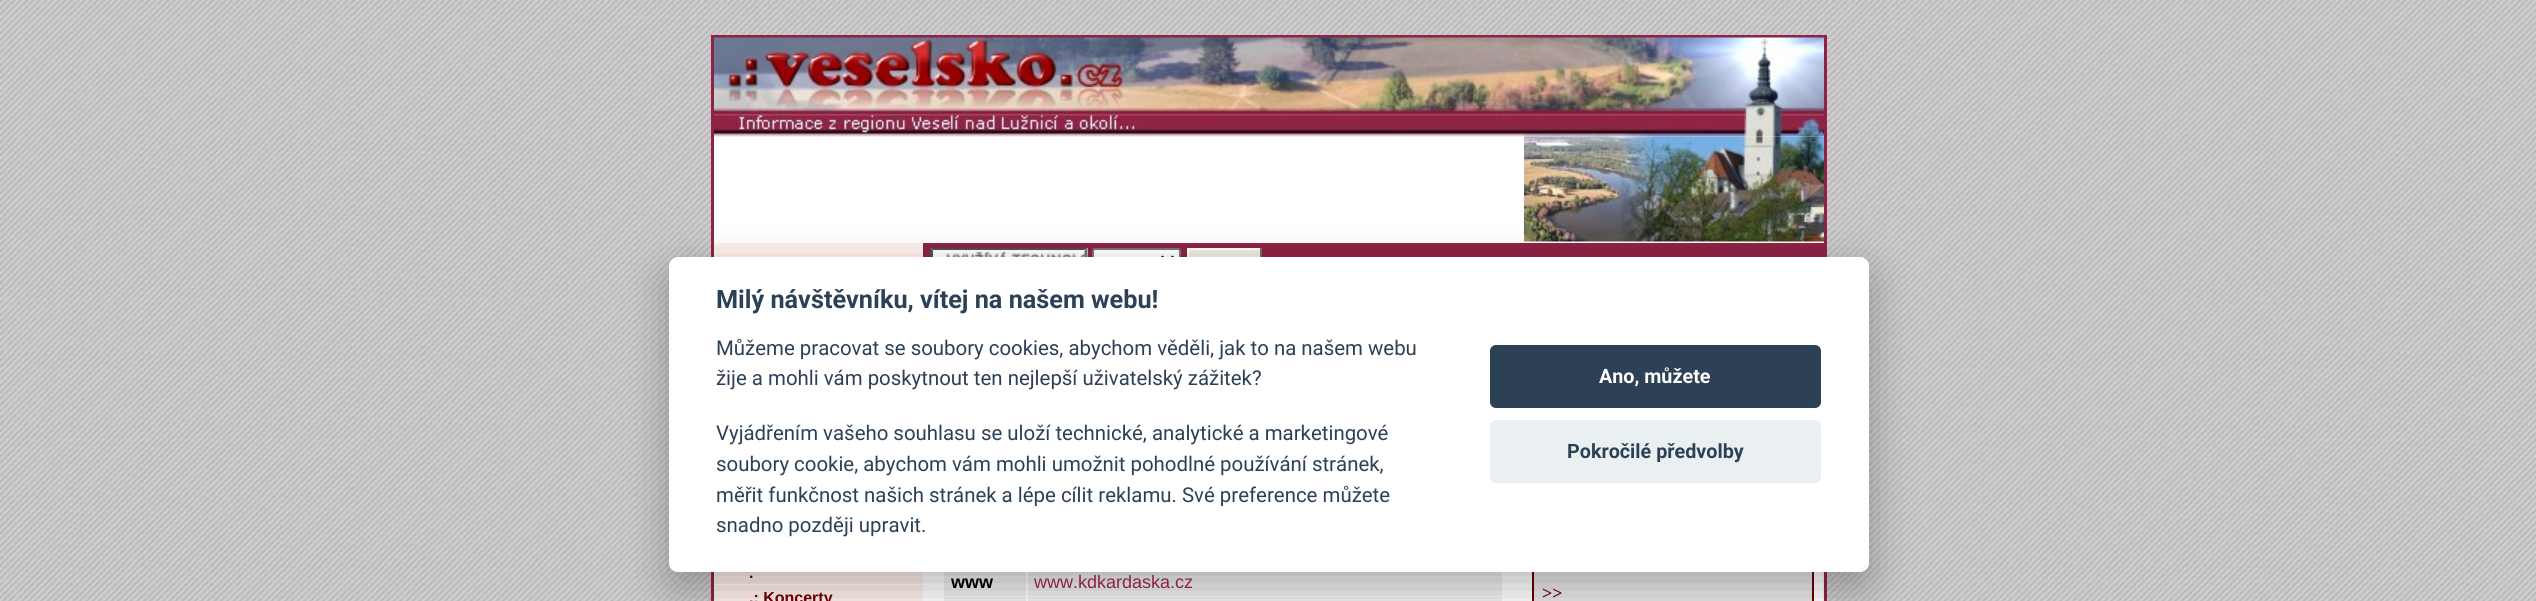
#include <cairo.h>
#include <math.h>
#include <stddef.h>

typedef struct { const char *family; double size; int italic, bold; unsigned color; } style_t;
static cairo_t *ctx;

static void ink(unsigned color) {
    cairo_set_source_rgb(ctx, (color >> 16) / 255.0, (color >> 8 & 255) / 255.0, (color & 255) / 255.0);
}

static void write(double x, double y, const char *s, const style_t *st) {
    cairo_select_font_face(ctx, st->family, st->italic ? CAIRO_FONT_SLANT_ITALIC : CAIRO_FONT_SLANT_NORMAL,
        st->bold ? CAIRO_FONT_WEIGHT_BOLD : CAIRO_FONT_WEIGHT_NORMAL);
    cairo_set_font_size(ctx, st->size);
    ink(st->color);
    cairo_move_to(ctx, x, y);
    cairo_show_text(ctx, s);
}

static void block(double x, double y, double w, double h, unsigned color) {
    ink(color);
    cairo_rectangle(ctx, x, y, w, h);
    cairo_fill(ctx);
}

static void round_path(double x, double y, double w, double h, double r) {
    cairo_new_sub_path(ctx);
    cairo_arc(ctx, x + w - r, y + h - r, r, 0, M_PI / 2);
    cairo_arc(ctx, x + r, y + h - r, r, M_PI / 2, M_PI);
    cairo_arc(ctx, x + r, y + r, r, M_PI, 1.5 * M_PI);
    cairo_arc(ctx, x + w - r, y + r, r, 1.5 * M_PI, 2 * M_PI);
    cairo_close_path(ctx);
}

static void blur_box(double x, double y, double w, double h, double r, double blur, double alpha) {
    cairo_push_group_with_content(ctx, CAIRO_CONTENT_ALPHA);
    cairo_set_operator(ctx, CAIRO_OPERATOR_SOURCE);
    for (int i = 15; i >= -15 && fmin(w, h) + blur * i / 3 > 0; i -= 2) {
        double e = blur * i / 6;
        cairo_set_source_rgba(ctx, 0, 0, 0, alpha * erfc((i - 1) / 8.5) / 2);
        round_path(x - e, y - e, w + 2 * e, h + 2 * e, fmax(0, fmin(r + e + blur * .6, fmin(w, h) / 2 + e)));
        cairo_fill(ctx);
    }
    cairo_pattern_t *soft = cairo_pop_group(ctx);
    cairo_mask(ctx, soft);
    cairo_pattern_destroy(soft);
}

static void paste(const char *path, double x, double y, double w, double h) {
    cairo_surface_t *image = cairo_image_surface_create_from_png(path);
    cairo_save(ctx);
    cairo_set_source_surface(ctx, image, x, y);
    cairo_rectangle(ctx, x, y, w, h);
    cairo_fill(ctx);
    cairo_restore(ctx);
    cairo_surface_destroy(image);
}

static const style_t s1 = {"Roboto", 25.25, 0, 1, 0x2d4156};
static const style_t s2 = {"Roboto", 20.4, 0, 0, 0x2d4156};
static const style_t s3 = {"Roboto", 19.75, 0, 1, 0xffffff};
static const style_t s4 = {"Roboto", 19.75, 0, 1, 0x2d4156};
static const style_t s5 = {"Liberation Sans", 16, 0, 1, 0x660000};
static const style_t s6 = {"Liberation Sans", 18, 0, 1, 0x000000};
static const style_t s7 = {"Liberation Sans", 18, 0, 0, 0x8e2344};
static const style_t s8 = {"Liberation Serif", 18, 0, 1, 0x660000};

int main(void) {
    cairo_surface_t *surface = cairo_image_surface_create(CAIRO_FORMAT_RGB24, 2536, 601);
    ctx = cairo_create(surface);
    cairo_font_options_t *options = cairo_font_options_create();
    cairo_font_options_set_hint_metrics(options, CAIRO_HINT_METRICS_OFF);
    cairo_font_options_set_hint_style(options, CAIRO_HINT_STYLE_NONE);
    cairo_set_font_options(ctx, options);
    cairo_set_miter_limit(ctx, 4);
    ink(0xffffff);
    cairo_paint(ctx);
    paste("pic1.png", 0, 0, 2536, 601);
    block(714, 136, 1110, 106, 0xffffff);
    block(711, 35, 1116, 3, 0x8e2344);
    block(1824, 35, 3, 207, 0x8e2344);
    block(711, 35, 3, 207, 0x8e2344);
    paste("pic3.png", 1524, 37, 300, 100);
    paste("pic4.png", 1524, 136, 300, 106);
    block(713, 242, 1113, 1, 0xffffff);
    block(1824, 242, 3, 15, 0x8e2344);
    block(711, 242, 3, 15, 0x8e2344);
    block(714, 243, 209, 14, 0xfff0eb);
    block(923, 243, 901, 14, 0x8e2344);
    block(930, 248, 158, 9, 0xffffff);
    paste("pic5.png", 946, 251, 142, 6);
    ink(0x4f4f4f);
    cairo_new_path(ctx);
    cairo_move_to(ctx, 930, 248);
    cairo_line_to(ctx, 1088, 248);
    cairo_line_to(ctx, 1084, 250);
    cairo_line_to(ctx, 933, 250);
    cairo_close_path(ctx);
    cairo_fill(ctx);
    ink(0x767676);
    cairo_new_path(ctx);
    cairo_move_to(ctx, 1087.5, 247.5);
    cairo_line_to(ctx, 1087.5, 271.5);
    cairo_line_to(ctx, 1084.5, 268.5);
    cairo_line_to(ctx, 1084.5, 250.5);
    cairo_close_path(ctx);
    cairo_fill(ctx);
    ink(0x4f4f4f);
    cairo_new_path(ctx);
    cairo_move_to(ctx, 930, 271.5);
    cairo_line_to(ctx, 930, 247.5);
    cairo_line_to(ctx, 933, 250.5);
    cairo_line_to(ctx, 933, 268.5);
    cairo_close_path(ctx);
    cairo_fill(ctx);
    ink(0xffffff);
    round_path(1093, 249, 87, 22, 2);
    cairo_fill_preserve(ctx);
    ink(0x767676);
    cairo_stroke(ctx);
    cairo_new_path(ctx);
    cairo_move_to(ctx, 1161.5, 256.5);
    cairo_line_to(ctx, 1167.5, 262.5);
    cairo_line_to(ctx, 1173.5, 256.5);
    ink(0x000000);
    cairo_set_line_width(ctx, 3);
    cairo_stroke(ctx);
    block(1189, 250, 71, 7, 0xefebde);
    block(1187, 248, 75, 2, 0xffffff);
    block(1260, 248, 2, 9, 0x736d63);
    block(1187, 248, 2, 9, 0xffffff);
    block(923, 572, 900, 29, 0xffffff);
    block(1824, 572, 3, 29, 0x8e2344);
    block(711, 572, 3, 29, 0x8e2344);
    block(714, 572, 209, 12, 0xfff0eb);
    block(714, 584, 209, 1, 0xffffff);
    block(714, 585, 209, 16, 0xfff0eb);
    block(944, 572, 82, 24, 0xefefef);
    block(1028, 572, 474, 24, 0xefefef);
    block(944, 597, 82, 4, 0xefefef);
    block(1028, 597, 474, 4, 0xefefef);
    block(1823, 572, 1, 29, 0xfff0eb);
    block(1534, 572, 278, 29, 0xe6e6e6);
    cairo_rectangle(ctx, 1533, 556, 280, 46);
    ink(0x660000);
    cairo_set_line_width(ctx, 2);
    cairo_stroke(ctx);
    ink(0x020203);
    blur_box(669, 272, 1200, 315, 9, 22.5, 0.28);
    ink(0xffffff);
    round_path(669, 257, 1200, 315, 9);
    cairo_fill(ctx);
    write(716, 308, "Milý návštěvníku, vítej na našem webu!", &s1);
    write(716, 355, "Můžeme pracovat se soubory cookies, abychom věděli, jak to na našem webu", &s2);
    write(716, 385, "žije a mohli vám poskytnout ten nejlepší uživatelský zážitek?", &s2);
    write(716, 440, "Vyjádřením vašeho souhlasu se uloží technické, analytické a marketingové", &s2);
    write(716, 471, "soubory cookie, abychom vám mohli umožnit pohodlné používání stránek,", &s2);
    write(716, 502, "měřit funkčnost našich stránek a lépe cílit reklamu. Své preference můžete", &s2);
    write(716, 532, "snadno později upravit.", &s2);
    round_path(1490, 345, 331, 63, 6);
    cairo_fill(ctx);
    write(1599, 383, "Ano, můžete", &s3);
    ink(0xeaeff2);
    round_path(1490, 420, 331, 63, 6);
    cairo_fill(ctx);
    write(1567, 458, "Pokročilé předvolby", &s4);
    paste("pic2.png", 714, 37, 810, 100);
    write(749, 578, ".", &s5);
    write(749, 603, ".: Koncerty", &s5);
    write(951, 588, "www", &s6);
    write(1034, 588, "www.kdkardaska.cz", &s7);
    write(1542, 599, ">>", &s8);
    cairo_surface_write_to_png(surface, "screenshot.png");
    cairo_font_options_destroy(options);
    cairo_destroy(ctx);
    cairo_surface_destroy(surface);
    return 0;
}
